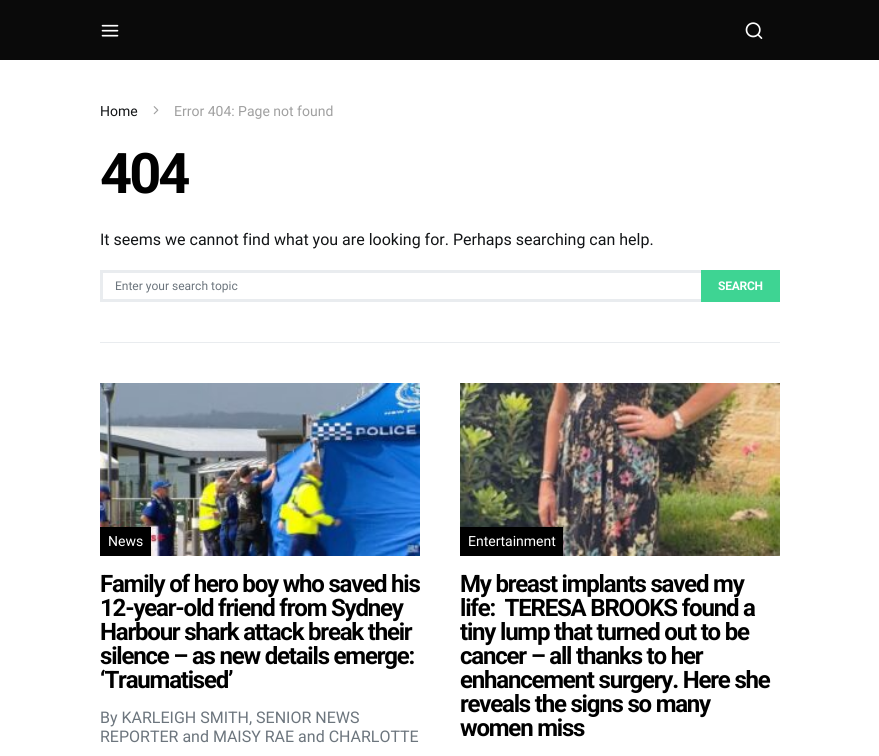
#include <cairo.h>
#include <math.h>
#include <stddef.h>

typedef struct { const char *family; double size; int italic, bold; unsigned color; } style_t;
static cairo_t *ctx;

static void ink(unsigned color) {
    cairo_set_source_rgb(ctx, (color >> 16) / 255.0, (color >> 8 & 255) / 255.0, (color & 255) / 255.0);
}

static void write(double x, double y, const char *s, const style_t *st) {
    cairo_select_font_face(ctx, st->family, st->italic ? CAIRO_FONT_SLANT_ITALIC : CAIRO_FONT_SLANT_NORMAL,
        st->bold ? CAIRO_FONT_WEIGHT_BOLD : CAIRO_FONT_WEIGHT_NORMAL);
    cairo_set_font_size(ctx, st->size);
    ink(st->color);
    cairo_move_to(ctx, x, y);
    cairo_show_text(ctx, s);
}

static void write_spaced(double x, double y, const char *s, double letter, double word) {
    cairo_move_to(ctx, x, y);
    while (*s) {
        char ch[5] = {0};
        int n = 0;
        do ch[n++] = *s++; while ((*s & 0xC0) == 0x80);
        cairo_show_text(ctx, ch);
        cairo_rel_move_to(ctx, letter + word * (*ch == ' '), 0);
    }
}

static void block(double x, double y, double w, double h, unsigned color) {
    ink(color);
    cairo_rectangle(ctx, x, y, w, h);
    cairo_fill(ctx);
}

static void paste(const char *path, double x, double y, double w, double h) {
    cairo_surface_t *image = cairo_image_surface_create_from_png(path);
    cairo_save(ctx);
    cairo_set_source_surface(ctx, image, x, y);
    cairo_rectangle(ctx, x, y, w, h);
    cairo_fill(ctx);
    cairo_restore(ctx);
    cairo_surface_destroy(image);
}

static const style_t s1 = {"Roboto", 14, 0, 0, 0x121416};
static const style_t s2 = {"Roboto", 14, 0, 0, 0xa0a0a0};
static const style_t s3 = {"Roboto", 16, 0, 0, 0x121416};
static const style_t s4 = {"Roboto", 12, 0, 0, 0x6c757d};
static const style_t s5 = {"Roboto", 14, 0, 0, 0xffffff};
static const style_t s6 = {"Roboto", 16, 0, 0, 0x6c757d};

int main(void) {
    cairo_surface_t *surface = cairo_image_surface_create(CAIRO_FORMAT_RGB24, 879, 756);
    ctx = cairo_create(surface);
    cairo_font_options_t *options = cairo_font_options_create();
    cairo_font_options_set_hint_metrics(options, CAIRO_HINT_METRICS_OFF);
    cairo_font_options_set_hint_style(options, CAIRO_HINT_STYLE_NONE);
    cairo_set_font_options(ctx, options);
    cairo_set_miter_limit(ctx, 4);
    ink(0xffffff);
    cairo_paint(ctx);
    block(0, 0, 879, 60, 0x0a0a0a);
    paste("pic1.png", 101, 24, 18, 13);
    paste("pic2.png", 745, 22, 18, 17);
    write(100, 116, "Home", &s1);
    paste("pic3.png", 153, 106, 6, 9);
    write(174, 116, "Error 404: Page not found", &s2);
    cairo_select_font_face(ctx, "Roboto", CAIRO_FONT_SLANT_NORMAL, CAIRO_FONT_WEIGHT_BOLD);
    cairo_set_font_size(ctx, 56);
    ink(0x000000);
    write_spaced(100, 193, "404", -3, 0);
    write(100, 245, "It seems we cannot find what you are looking for. Perhaps searching can help.", &s3);
    block(100, 270, 601, 32, 0xe9ecef);
    block(103, 273, 598, 26, 0xffffff);
    write(115, 290, "Enter your search topic", &s4);
    block(701, 270, 79, 32, 0x3ed493);
    cairo_select_font_face(ctx, "Roboto", CAIRO_FONT_SLANT_NORMAL, CAIRO_FONT_WEIGHT_BOLD);
    ink(0xffffff);
    write_spaced(718, 290, "SEARCH", -0.25, 0);
    block(100, 342, 680, 1, 0xe9ecef);
    paste("pic4.png", 100, 383, 320, 173);
    block(100, 527, 51, 29, 0x000000);
    write(108, 546, "News", &s5);
    cairo_select_font_face(ctx, "Roboto", CAIRO_FONT_SLANT_NORMAL, CAIRO_FONT_WEIGHT_BOLD);
    cairo_set_font_size(ctx, 24);
    ink(0x000000);
    write_spaced(100, 592, "Family of hero boy who saved his", -1.2, 0);
    write_spaced(100, 616, "12-year-old friend from Sydney", -1.2, 0);
    write_spaced(100, 640, "Harbour shark attack break their", -1.2, 0);
    write_spaced(100, 664, "silence – as new details emerge:", -1.2, 0);
    write_spaced(100, 688, "‘Traumatised’", -1.2, 0);
    write(100, 723, "By KARLEIGH SMITH, SENIOR NEWS", &s6);
    write(100, 742, "REPORTER and MAISY RAE and CHARLOTTE", &s6);
    paste("pic5.png", 460, 383, 320, 173);
    block(460, 527, 103, 29, 0x000000);
    write(468, 546, "Entertainment", &s5);
    cairo_select_font_face(ctx, "Roboto", CAIRO_FONT_SLANT_NORMAL, CAIRO_FONT_WEIGHT_BOLD);
    cairo_set_font_size(ctx, 24);
    ink(0x000000);
    write_spaced(460, 592, "My breast implants saved my", -1.2, 0);
    write_spaced(460, 616, "life:  TERESA BROOKS found a", -1.2, 0);
    write_spaced(460, 640, "tiny lump that turned out to be", -1.2, 0);
    write_spaced(460, 664, "cancer – all thanks to her", -1.2, 0);
    write_spaced(460, 688, "enhancement surgery. Here she", -1.2, 0);
    write_spaced(460, 712, "reveals the signs so many", -1.2, 0);
    write_spaced(460, 736, "women miss", -1.2, 0);
    cairo_surface_write_to_png(surface, "screenshot.png");
    cairo_font_options_destroy(options);
    cairo_destroy(ctx);
    cairo_surface_destroy(surface);
    return 0;
}
